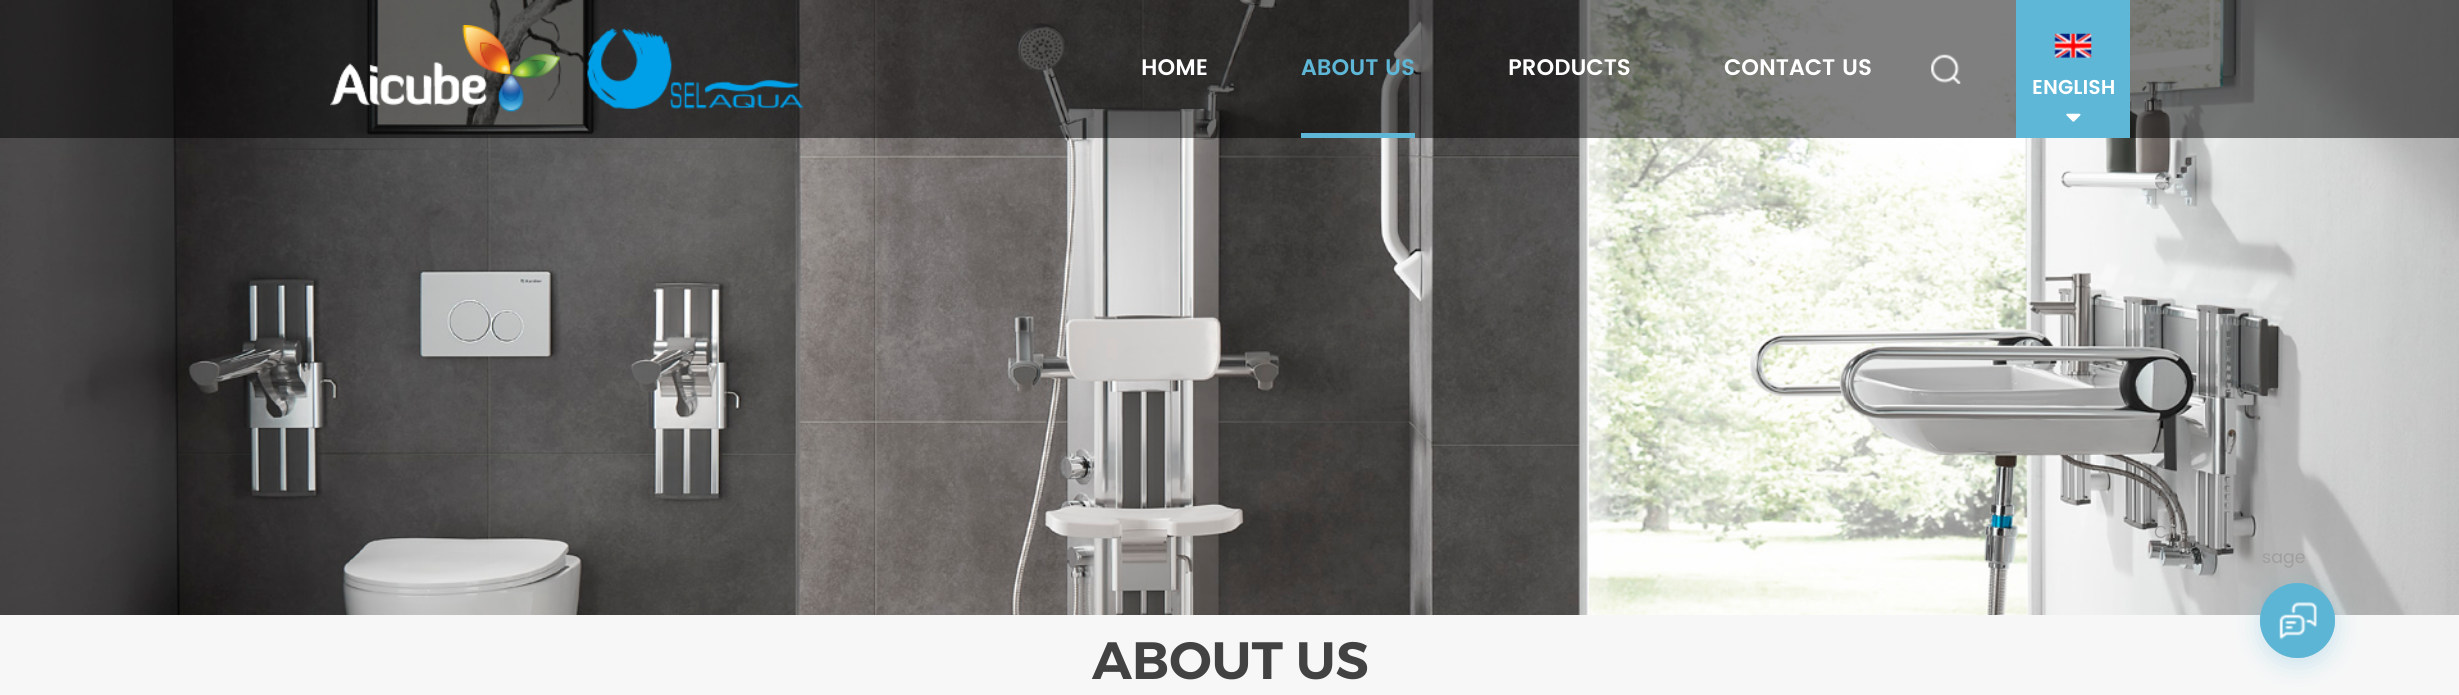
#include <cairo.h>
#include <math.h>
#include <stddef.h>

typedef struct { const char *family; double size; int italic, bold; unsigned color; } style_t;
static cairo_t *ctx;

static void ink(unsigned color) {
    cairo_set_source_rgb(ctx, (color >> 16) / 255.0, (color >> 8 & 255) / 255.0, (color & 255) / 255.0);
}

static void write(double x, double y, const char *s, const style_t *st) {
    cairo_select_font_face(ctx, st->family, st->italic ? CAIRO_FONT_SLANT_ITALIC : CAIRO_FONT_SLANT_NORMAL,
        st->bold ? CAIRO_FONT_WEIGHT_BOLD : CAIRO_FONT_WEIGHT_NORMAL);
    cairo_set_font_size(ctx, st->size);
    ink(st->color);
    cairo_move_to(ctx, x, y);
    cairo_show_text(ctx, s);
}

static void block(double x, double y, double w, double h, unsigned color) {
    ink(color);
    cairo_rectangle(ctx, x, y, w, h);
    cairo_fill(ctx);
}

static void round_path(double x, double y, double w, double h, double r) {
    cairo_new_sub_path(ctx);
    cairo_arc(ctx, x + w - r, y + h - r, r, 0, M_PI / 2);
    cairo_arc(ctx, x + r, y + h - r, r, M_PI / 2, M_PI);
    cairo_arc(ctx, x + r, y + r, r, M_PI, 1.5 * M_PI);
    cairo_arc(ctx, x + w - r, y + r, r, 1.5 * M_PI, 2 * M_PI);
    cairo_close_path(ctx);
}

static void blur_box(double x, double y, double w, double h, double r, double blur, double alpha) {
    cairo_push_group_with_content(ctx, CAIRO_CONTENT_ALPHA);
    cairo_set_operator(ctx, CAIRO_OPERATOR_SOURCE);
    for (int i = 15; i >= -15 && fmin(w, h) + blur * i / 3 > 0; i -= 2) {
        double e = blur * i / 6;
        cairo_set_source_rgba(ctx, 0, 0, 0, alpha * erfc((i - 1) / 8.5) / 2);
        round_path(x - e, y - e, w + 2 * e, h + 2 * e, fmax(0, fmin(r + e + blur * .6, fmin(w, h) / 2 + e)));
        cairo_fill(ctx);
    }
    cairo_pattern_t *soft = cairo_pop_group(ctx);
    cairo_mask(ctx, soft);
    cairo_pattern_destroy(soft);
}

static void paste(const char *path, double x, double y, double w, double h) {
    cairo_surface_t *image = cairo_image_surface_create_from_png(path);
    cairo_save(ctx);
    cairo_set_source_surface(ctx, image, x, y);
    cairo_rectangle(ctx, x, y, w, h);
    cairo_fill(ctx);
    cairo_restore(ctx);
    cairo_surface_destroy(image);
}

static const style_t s1 = {"Poppins SemiBold", 22.5, 0, 0, 0xffffff};
static const style_t s2 = {"Poppins SemiBold", 22.5, 0, 0, 0x5eb7d7};
static const style_t s3 = {"Poppins SemiBold", 20, 0, 0, 0xffffff};
static const style_t s4 = {"Poppins", 17.5, 0, 0, 0x9e9e9d};
static const style_t s5 = {"Montserrat SemiBold", 52.5, 0, 0, 0x424242};

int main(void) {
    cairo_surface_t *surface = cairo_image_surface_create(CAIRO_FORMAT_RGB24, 2459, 695);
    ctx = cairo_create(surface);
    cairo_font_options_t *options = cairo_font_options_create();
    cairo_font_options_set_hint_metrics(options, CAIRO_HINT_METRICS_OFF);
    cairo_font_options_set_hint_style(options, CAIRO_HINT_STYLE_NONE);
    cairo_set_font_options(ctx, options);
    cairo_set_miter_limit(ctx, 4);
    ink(0xf7f7f7);
    cairo_paint(ctx);
    paste("pic1.png", 0, 0, 2459, 615);
    cairo_set_source_rgba(ctx, 0, 0, 0, 0.5);
    cairo_rectangle(ctx, 0, 0, 2459, 138);
    cairo_fill(ctx);
    paste("pic2.png", 330, 25, 473, 87);
    write(1141, 75, "HOME", &s1);
    write(1301, 75, "ABOUT US", &s2);
    block(1301, 133, 114, 5, 0x5eb7d7);
    write(1508, 75, "PRODUCTS", &s1);
    write(1724, 75, "CONTACT US", &s1);
    paste("pic3.png", 1931, 54, 30, 30);
    block(2016, 0, 114, 138, 0x5eb7d7);
    paste("pic4.png", 2054, 33, 38, 25);
    write(2032, 94, "ENGLISH", &s3);
    paste("pic5.png", 2066, 113, 15, 9);
    ink(0x5eb7d7);
    blur_box(2260, 589, 75, 75, 37.5, 12.5, 0.3);
    ink(0x5eb7d7);
    cairo_arc(ctx, 2297.5, 620.5, 37.5, 0, 2 * M_PI);
    cairo_fill(ctx);
    write(2154, 538, "Cli", &s4);
    write(2262, 563, "sage", &s4);
    cairo_set_source_rgba(ctx, 0.369, 0.718, 0.843, 0.25);
    cairo_new_path(ctx);
    cairo_arc(ctx, 2297.5, 620.5, 37.5, 0, 2 * M_PI);
    cairo_fill(ctx);
    cairo_arc(ctx, 2297.5, 620.5, 37.5, 0, 2 * M_PI);
    cairo_fill(ctx);
    cairo_arc(ctx, 2297.5, 620.5, 37.5, 0, 2 * M_PI);
    cairo_fill(ctx);
    paste("pic6.png", 2279, 602, 38, 38);
    write(1092, 679, "ABOUT US", &s5);
    cairo_surface_write_to_png(surface, "screenshot.png");
    cairo_font_options_destroy(options);
    cairo_destroy(ctx);
    cairo_surface_destroy(surface);
    return 0;
}
